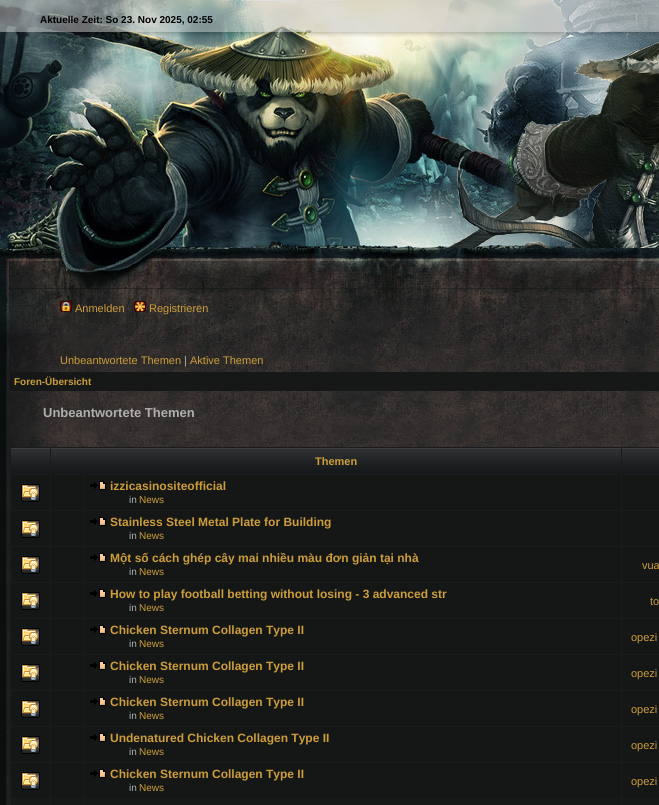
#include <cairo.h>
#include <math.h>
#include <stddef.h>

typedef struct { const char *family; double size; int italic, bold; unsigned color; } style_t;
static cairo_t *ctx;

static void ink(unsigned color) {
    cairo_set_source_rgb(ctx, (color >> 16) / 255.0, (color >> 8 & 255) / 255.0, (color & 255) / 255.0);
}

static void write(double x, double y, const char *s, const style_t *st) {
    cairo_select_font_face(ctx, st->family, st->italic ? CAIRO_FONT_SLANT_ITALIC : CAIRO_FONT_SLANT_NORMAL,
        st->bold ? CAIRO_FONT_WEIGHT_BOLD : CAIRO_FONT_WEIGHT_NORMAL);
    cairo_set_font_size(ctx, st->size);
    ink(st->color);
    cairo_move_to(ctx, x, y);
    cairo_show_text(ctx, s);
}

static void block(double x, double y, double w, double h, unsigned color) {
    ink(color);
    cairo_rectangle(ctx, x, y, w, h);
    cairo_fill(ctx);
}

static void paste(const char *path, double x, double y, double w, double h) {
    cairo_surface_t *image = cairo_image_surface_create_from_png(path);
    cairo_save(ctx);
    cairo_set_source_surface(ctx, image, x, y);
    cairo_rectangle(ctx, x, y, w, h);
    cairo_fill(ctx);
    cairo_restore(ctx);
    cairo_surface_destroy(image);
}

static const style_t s1 = {"Liberation Sans", 10, 0, 1, 0x000000};
static const style_t s2 = {"Liberation Sans", 11, 0, 0, 0xcd9d3a};
static const style_t s3 = {"Liberation Sans", 11, 0, 0, 0xafafaf};
static const style_t s4 = {"Liberation Sans", 10, 0, 1, 0xcd9d3a};
static const style_t s5 = {"Liberation Sans", 13, 0, 1, 0xafafaf};
static const style_t s6 = {"Liberation Sans", 11, 0, 1, 0xcd9d3a};
static const style_t s7 = {"Liberation Sans", 12, 0, 1, 0xcd9d3a};
static const style_t s8 = {"Liberation Sans", 10, 0, 0, 0xafafaf};
static const style_t s9 = {"Liberation Sans", 10, 0, 0, 0xcd9d3a};

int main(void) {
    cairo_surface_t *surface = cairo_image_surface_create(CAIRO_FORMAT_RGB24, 659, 805);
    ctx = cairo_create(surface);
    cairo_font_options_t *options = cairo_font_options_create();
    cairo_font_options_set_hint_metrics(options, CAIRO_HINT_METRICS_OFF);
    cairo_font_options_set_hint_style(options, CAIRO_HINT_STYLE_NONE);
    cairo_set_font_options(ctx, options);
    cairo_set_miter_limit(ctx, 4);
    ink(0x0a0e0f);
    cairo_paint(ctx);
    paste("pic1.png", 0, 0, 659, 289);
    write(40, 23, "Aktuelle Zeit: So 23. Nov 2025, 02:55", &s1);
    paste("pic2.png", 0, 289, 659, 63);
    paste("pic3.png", 60, 301, 12, 11);
    write(75, 312, "Anmelden", &s2);
    paste("pic4.png", 134, 301, 12, 11);
    write(149, 312, "Registrieren", &s2);
    paste("pic5.png", 6, 352, 653, 453);
    write(60, 364, "Unbeantwortete Themen", &s2);
    write(184, 364, "|", &s3);
    write(190, 364, "Aktive Themen", &s2);
    block(10, 372, 649, 19, 0x161817);
    write(14, 385, "Foren-Übersicht", &s4);
    write(43, 417, "Unbeantwortete Themen", &s5);
    block(10, 447, 649, 358, 0x1b1b1b);
    paste("pic6.png", 11, 448, 39, 26);
    paste("pic7.png", 51, 448, 570, 26);
    write(315, 465, "Themen", &s6);
    paste("pic8.png", 622, 448, 37, 26);
    block(11, 475, 39, 35, 0x151716);
    paste("pic9.png", 21, 484, 19, 18);
    block(51, 475, 33, 35, 0x151716);
    block(85, 475, 536, 35, 0x151716);
    paste("pic10.png", 90, 481, 16, 9);
    write(110, 490, "izzicasinositeofficial", &s7);
    write(129, 503, "in", &s8);
    write(139, 503, "News", &s9);
    block(622, 475, 37, 35, 0x151716);
    block(11, 511, 39, 35, 0x151716);
    paste("pic9.png", 21, 520, 19, 18);
    block(51, 511, 33, 35, 0x151716);
    block(85, 511, 536, 35, 0x151716);
    paste("pic10.png", 90, 517, 16, 9);
    write(110, 526, "Stainless Steel Metal Plate for Building", &s7);
    write(129, 539, "in", &s8);
    write(139, 539, "News", &s9);
    block(622, 511, 37, 35, 0x151716);
    block(11, 547, 39, 35, 0x151716);
    paste("pic9.png", 21, 556, 19, 18);
    block(51, 547, 33, 35, 0x151716);
    block(85, 547, 536, 35, 0x151716);
    paste("pic10.png", 90, 553, 16, 9);
    write(110, 562, "Một số cách ghép cây mai nhiều màu đơn giản tại nhà", &s7);
    write(129, 575, "in", &s8);
    write(139, 575, "News", &s9);
    block(622, 547, 37, 35, 0x151716);
    write(642, 569, "vua", &s2);
    block(11, 583, 39, 35, 0x151716);
    paste("pic9.png", 21, 592, 19, 18);
    block(51, 583, 33, 35, 0x151716);
    block(85, 583, 536, 35, 0x151716);
    paste("pic10.png", 90, 589, 16, 9);
    write(110, 598, "How to play football betting without losing - 3 advanced str", &s7);
    write(129, 611, "in", &s8);
    write(139, 611, "News", &s9);
    block(622, 583, 37, 35, 0x151716);
    write(650, 605, "to", &s2);
    block(11, 619, 39, 35, 0x151716);
    paste("pic9.png", 21, 628, 19, 18);
    block(51, 619, 33, 35, 0x151716);
    block(85, 619, 536, 35, 0x151716);
    paste("pic10.png", 90, 625, 16, 9);
    write(110, 634, "Chicken Sternum Collagen Type II", &s7);
    write(129, 647, "in", &s8);
    write(139, 647, "News", &s9);
    block(622, 619, 37, 35, 0x151716);
    write(631, 641, "opezi", &s2);
    block(11, 655, 39, 35, 0x151716);
    paste("pic9.png", 21, 664, 19, 18);
    block(51, 655, 33, 35, 0x151716);
    block(85, 655, 536, 35, 0x151716);
    paste("pic10.png", 90, 661, 16, 9);
    write(110, 670, "Chicken Sternum Collagen Type II", &s7);
    write(129, 683, "in", &s8);
    write(139, 683, "News", &s9);
    block(622, 655, 37, 35, 0x151716);
    write(631, 677, "opezi", &s2);
    block(11, 691, 39, 35, 0x151716);
    paste("pic9.png", 21, 700, 19, 18);
    block(51, 691, 33, 35, 0x151716);
    block(85, 691, 536, 35, 0x151716);
    paste("pic10.png", 90, 697, 16, 9);
    write(110, 706, "Chicken Sternum Collagen Type II", &s7);
    write(129, 719, "in", &s8);
    write(139, 719, "News", &s9);
    block(622, 691, 37, 35, 0x151716);
    write(631, 713, "opezi", &s2);
    block(11, 727, 39, 35, 0x151716);
    paste("pic9.png", 21, 736, 19, 18);
    block(51, 727, 33, 35, 0x151716);
    block(85, 727, 536, 35, 0x151716);
    paste("pic10.png", 90, 733, 16, 9);
    write(110, 742, "Undenatured Chicken Collagen Type II", &s7);
    write(129, 755, "in", &s8);
    write(139, 755, "News", &s9);
    block(622, 727, 37, 35, 0x151716);
    write(631, 749, "opezi", &s2);
    block(11, 763, 39, 35, 0x151716);
    paste("pic9.png", 21, 772, 19, 18);
    block(51, 763, 33, 35, 0x151716);
    block(85, 763, 536, 35, 0x151716);
    paste("pic10.png", 90, 769, 16, 9);
    write(110, 778, "Chicken Sternum Collagen Type II", &s7);
    write(129, 791, "in", &s8);
    write(139, 791, "News", &s9);
    block(622, 763, 37, 35, 0x151716);
    write(631, 785, "opezi", &s2);
    block(11, 799, 39, 6, 0x161817);
    block(51, 799, 33, 6, 0x161817);
    block(85, 799, 536, 6, 0x161817);
    block(622, 799, 37, 6, 0x161817);
    cairo_surface_write_to_png(surface, "screenshot.png");
    cairo_font_options_destroy(options);
    cairo_destroy(ctx);
    cairo_surface_destroy(surface);
    return 0;
}
